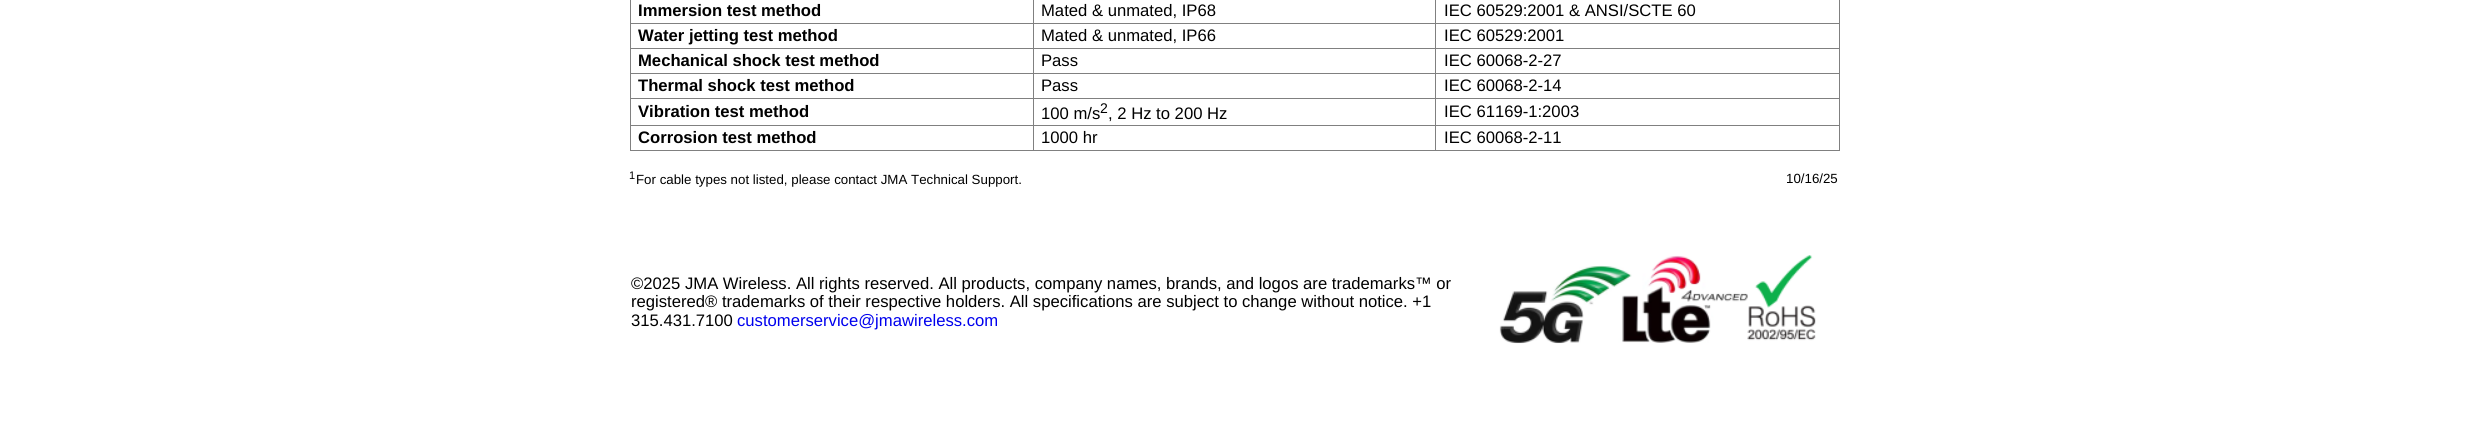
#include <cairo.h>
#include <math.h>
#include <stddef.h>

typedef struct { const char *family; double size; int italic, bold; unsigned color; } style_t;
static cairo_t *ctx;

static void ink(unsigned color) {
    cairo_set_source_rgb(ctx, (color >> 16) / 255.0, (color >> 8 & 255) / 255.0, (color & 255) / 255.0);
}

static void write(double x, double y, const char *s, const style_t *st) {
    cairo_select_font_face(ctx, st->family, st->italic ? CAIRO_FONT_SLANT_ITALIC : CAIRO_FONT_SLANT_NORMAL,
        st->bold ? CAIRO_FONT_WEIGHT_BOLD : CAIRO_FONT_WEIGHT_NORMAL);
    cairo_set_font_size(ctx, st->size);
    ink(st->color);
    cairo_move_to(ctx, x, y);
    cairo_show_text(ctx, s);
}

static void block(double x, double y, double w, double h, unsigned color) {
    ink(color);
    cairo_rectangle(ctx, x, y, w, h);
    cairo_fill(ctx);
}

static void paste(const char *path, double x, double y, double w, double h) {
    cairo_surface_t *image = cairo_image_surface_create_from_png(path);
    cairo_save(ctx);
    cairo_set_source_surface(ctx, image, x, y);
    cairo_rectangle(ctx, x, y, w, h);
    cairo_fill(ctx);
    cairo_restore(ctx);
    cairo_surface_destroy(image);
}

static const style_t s1 = {"Liberation Sans", 16.65, 0, 1, 0x000000};
static const style_t s2 = {"Liberation Sans", 16.65, 0, 0, 0x000000};
static const style_t s3 = {"Liberation Sans", 14, 0, 0, 0x000000};
static const style_t s4 = {"Liberation Sans", 11, 0, 0, 0x000000};
static const style_t s5 = {"Liberation Sans", 13.3, 0, 0, 0x000000};
static const style_t s6 = {"Liberation Sans", 16.65, 0, 0, 0x0000ee};

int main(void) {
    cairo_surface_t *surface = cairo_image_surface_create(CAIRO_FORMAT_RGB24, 2468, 422);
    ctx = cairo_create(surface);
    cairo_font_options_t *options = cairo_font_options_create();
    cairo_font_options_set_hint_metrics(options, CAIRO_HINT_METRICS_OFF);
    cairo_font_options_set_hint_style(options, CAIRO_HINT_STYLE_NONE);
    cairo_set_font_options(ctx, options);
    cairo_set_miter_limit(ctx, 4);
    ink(0xffffff);
    cairo_paint(ctx);
    block(1839, 0, 1, 151, 0x808080);
    block(630, 150, 1210, 1, 0x808080);
    block(630, 0, 1, 151, 0x808080);
    block(1435, 125, 1, 26, 0x808080);
    block(1435, 125, 405, 1, 0x808080);
    block(1435, 98, 1, 28, 0x808080);
    block(1435, 98, 405, 1, 0x808080);
    block(1435, 73, 1, 26, 0x808080);
    block(1435, 73, 405, 1, 0x808080);
    block(1435, 48, 1, 26, 0x808080);
    block(1435, 48, 405, 1, 0x808080);
    block(1435, 23, 1, 26, 0x808080);
    block(1435, 23, 405, 1, 0x808080);
    block(1435, 0, 1, 24, 0x808080);
    block(1033, 125, 1, 26, 0x808080);
    block(1033, 125, 403, 1, 0x808080);
    block(1033, 98, 1, 28, 0x808080);
    block(1033, 98, 403, 1, 0x808080);
    block(1033, 73, 1, 26, 0x808080);
    block(1033, 73, 403, 1, 0x808080);
    block(1033, 48, 1, 26, 0x808080);
    block(1033, 48, 403, 1, 0x808080);
    block(1033, 23, 1, 26, 0x808080);
    block(1033, 23, 403, 1, 0x808080);
    block(1033, 0, 1, 24, 0x808080);
    block(630, 23, 404, 1, 0x808080);
    write(638, 16, "Immersion test method", &s1);
    write(1041, 16, "Mated & unmated, IP68", &s2);
    write(1444, 16, "IEC 60529:2001 & ANSI/SCTE 60", &s2);
    block(630, 48, 404, 1, 0x808080);
    write(638, 41, "Water jetting test method", &s1);
    write(1041, 41, "Mated & unmated, IP66", &s2);
    write(1444, 41, "IEC 60529:2001", &s2);
    block(630, 73, 404, 1, 0x808080);
    write(638, 66, "Mechanical shock test method", &s1);
    write(1041, 66, "Pass", &s2);
    write(1444, 66, "IEC 60068-2-27", &s2);
    block(630, 98, 404, 1, 0x808080);
    write(638, 91, "Thermal shock test method", &s1);
    write(1041, 91, "Pass", &s2);
    write(1444, 91, "IEC 60068-2-14", &s2);
    block(630, 125, 404, 1, 0x808080);
    write(638, 117, "Vibration test method", &s1);
    write(1041, 119, "100 m/s", &s2);
    write(1100, 113, "2", &s3);
    write(1108, 119, ", 2 Hz to 200 Hz", &s2);
    write(1444, 117, "IEC 61169-1:2003", &s2);
    write(638, 143, "Corrosion test method", &s1);
    write(1041, 143, "1000 hr", &s2);
    write(1444, 143, "IEC 60068-2-11", &s2);
    write(629, 179, "1", &s4);
    write(636, 184, "For cable types not listed, please contact JMA Technical Support.", &s5);
    write(1786, 183, "10/16/25", &s5);
    write(631, 289, "©2025 JMA Wireless. All rights reserved. All products, company names, brands, and logos are trademarks™ or", &s2);
    write(631, 307, "registered® trademarks of their respective holders. All specifications are subject to change without notice. +1", &s2);
    write(631, 326, "315.431.7100", &s2);
    write(737, 326, "customerservice@jmawireless.com", &s6);
    paste("pic1.png", 1499, 255, 317, 89);
    cairo_surface_write_to_png(surface, "screenshot.png");
    cairo_font_options_destroy(options);
    cairo_destroy(ctx);
    cairo_surface_destroy(surface);
    return 0;
}
